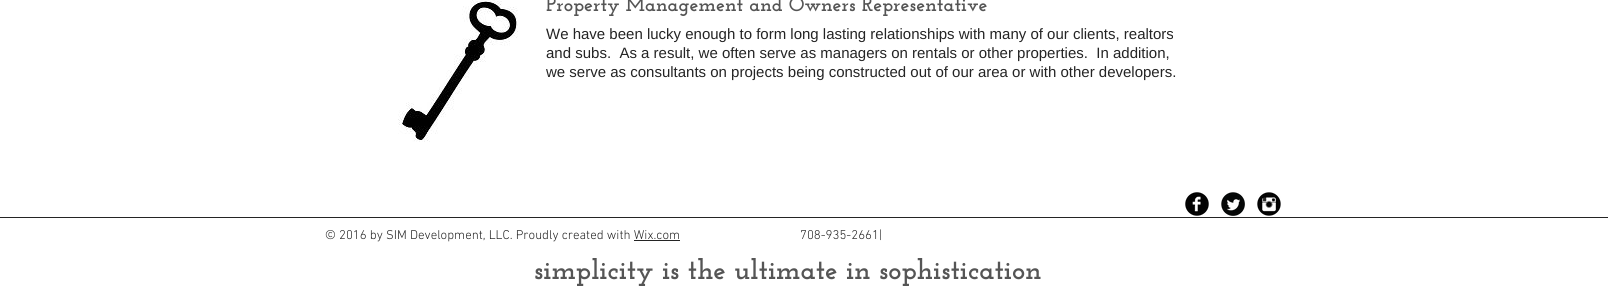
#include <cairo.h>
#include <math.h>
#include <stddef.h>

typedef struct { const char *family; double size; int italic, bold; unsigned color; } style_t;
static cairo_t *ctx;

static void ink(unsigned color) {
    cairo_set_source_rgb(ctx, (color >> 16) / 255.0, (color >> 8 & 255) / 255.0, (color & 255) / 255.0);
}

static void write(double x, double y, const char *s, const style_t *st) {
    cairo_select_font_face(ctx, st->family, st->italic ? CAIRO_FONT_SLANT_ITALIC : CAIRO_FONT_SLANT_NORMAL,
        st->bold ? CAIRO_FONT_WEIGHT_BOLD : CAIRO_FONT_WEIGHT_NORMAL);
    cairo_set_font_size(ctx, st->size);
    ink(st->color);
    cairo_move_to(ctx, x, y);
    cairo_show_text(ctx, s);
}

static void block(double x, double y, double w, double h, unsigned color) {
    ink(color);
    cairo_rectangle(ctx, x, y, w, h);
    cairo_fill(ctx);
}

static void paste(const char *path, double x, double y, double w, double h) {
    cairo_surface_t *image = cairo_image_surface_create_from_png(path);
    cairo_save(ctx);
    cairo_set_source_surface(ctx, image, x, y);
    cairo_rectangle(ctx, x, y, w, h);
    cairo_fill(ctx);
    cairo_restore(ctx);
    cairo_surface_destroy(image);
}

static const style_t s1 = {"Josefin Slab", 20, 0, 1, 0x555555};
static const style_t s2 = {"Liberation Sans", 15, 0, 0, 0x242424};
static const style_t s3 = {"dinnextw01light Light", 13, 0, 0, 0x242424};
static const style_t s4 = {"Josefin Slab", 28, 0, 1, 0x555555};

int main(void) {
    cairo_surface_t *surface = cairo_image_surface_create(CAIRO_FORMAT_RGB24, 1608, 303);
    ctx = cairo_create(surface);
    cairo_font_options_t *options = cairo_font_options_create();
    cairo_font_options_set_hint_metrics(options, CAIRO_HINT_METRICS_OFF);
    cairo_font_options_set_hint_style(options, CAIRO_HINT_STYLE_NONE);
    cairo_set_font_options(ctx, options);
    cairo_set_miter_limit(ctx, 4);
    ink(0xffffff);
    cairo_paint(ctx);
    paste("pic1.png", 398, 0, 120, 142);
    write(546, 11, "Property Management and Owners Representative", &s1);
    write(546, 39, "We have been lucky enough to form long lasting relationships with many of our clients, realtors", &s2);
    write(546, 58, "and subs.  As a result, we often serve as managers on rentals or other properties.  In addition,", &s2);
    write(546, 77, "we serve as consultants on projects being constructed out of our area or with other developers.", &s2);
    paste("pic2.png", 1185, 192, 24, 24);
    paste("pic3.png", 1221, 192, 24, 24);
    paste("pic4.png", 1257, 192, 24, 24);
    block(0, 217, 1608, 1, 0x242424);
    write(325, 239, "© 2016 by SIM Development, LLC. Proudly created with Wix.com", &s3);
    block(634, 240, 46, 1, 0x242424);
    write(800, 239, "708-935-2661|", &s3);
    write(534, 279, "simplicity is the ultimate in sophistication", &s4);
    cairo_surface_write_to_png(surface, "screenshot.png");
    cairo_font_options_destroy(options);
    cairo_destroy(ctx);
    cairo_surface_destroy(surface);
    return 0;
}
